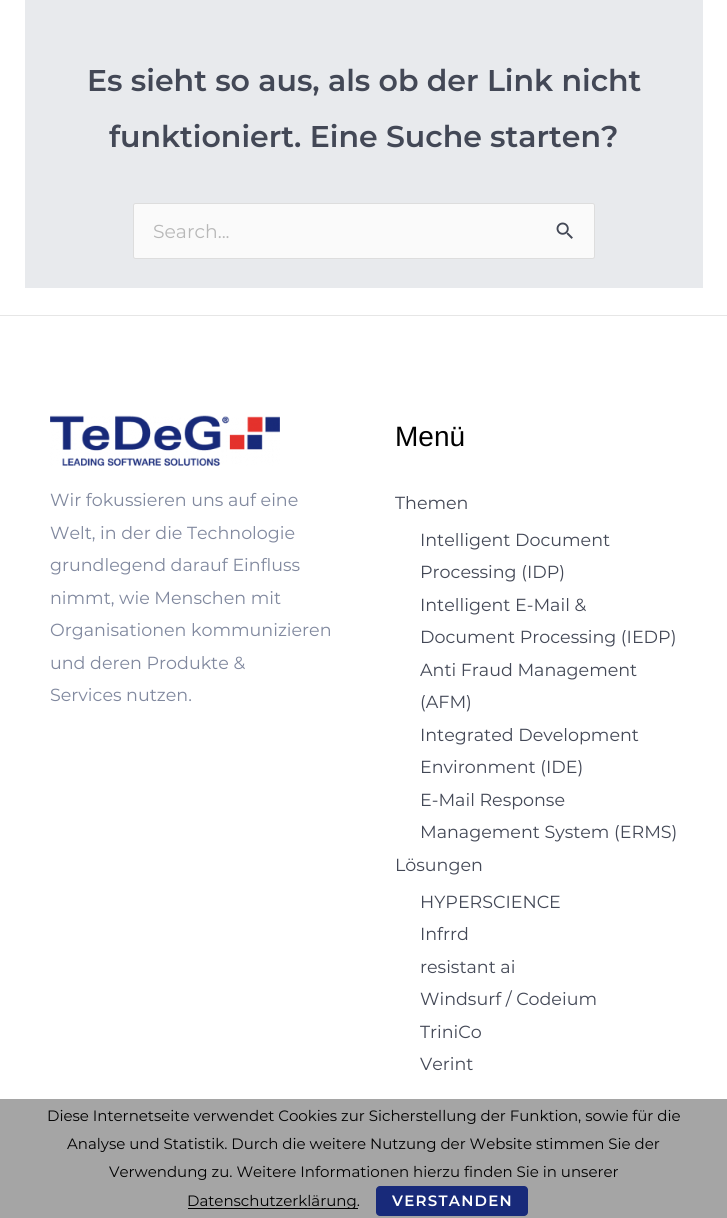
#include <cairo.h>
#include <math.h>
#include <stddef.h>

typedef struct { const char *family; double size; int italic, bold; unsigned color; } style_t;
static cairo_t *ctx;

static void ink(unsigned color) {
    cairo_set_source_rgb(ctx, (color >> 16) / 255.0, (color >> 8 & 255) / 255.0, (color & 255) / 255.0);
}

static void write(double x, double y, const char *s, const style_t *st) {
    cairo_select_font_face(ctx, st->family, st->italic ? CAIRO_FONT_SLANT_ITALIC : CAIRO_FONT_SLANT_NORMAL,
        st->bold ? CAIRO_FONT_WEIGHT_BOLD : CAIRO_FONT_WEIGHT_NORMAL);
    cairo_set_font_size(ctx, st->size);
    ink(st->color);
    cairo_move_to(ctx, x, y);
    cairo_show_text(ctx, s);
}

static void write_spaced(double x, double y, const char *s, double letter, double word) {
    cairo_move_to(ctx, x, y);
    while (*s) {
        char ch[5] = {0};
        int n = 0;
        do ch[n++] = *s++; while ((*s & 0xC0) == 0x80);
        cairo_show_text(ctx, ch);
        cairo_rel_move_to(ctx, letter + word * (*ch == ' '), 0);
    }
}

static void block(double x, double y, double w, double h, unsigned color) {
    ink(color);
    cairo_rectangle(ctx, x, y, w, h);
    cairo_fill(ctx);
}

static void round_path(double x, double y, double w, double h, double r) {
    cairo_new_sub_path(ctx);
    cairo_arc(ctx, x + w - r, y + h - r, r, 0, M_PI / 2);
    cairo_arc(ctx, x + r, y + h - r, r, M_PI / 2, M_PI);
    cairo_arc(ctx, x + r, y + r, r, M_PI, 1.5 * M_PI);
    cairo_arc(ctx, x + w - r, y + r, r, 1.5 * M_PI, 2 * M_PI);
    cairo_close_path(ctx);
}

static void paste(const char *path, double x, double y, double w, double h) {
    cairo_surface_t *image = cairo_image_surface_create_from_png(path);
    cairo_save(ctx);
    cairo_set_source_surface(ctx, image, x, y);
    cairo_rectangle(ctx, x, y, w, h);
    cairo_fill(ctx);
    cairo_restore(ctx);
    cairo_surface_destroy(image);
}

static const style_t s1 = {"Montserrat SemiBold", 30, 0, 0, 0x434856};
static const style_t s2 = {"Montserrat", 18.75, 0, 0, 0xb8b8b8};
static const style_t s3 = {"Montserrat", 17.5, 0, 0, 0x80889e};
static const style_t s4 = {"Liberation Sans", 28, 0, 0, 0x000000};
static const style_t s5 = {"Montserrat", 17.5, 0, 0, 0x434856};
static const style_t s6 = {"Montserrat", 15, 0, 0, 0x000000};

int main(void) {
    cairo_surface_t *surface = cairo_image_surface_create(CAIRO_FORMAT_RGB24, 727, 1218);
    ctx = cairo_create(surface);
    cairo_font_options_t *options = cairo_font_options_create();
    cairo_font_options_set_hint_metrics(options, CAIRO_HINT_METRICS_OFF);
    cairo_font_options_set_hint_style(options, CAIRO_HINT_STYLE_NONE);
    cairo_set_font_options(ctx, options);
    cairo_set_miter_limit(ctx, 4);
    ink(0xffffff);
    cairo_paint(ctx);
    block(25, 0, 678, 288, 0xe8eaed);
    write(87, 91, "Es sieht so aus, als ob der Link nicht", &s1);
    write(109, 147, "funktioniert. Eine Suche starten?", &s1);
    ink(0xfafafa);
    round_path(133.5, 203.5, 461, 55, 2);
    cairo_fill_preserve(ctx);
    ink(0xdddddd);
    cairo_set_line_width(ctx, 1);
    cairo_stroke(ctx);
    write(153, 238, "Search...", &s2);
    paste("pic1.png", 556, 222, 17, 17);
    block(0, 315, 727, 1, 0xe6e6e6);
    paste("pic2.png", 50, 415, 230, 51);
    write(50, 506, "Wir fokussieren uns auf eine", &s3);
    write(50, 539, "Welt, in der die Technologie", &s3);
    write(50, 571, "grundlegend darauf Einfluss", &s3);
    write(50, 604, "nimmt, wie Menschen mit", &s3);
    write(50, 636, "Organisationen kommunizieren", &s3);
    write(50, 669, "und deren Produkte &", &s3);
    write(50, 701, "Services nutzen.", &s3);
    write(395, 446, "Menü", &s4);
    write(395, 509, "Themen", &s5);
    write(420, 546, "Intelligent Document", &s5);
    write(420, 578, "Processing (IDP)", &s5);
    write(420, 611, "Intelligent E-Mail &", &s5);
    write(420, 643, "Document Processing (IEDP)", &s5);
    write(420, 676, "Anti Fraud Management", &s5);
    write(420, 708, "(AFM)", &s5);
    write(420, 741, "Integrated Development", &s5);
    write(420, 773, "Environment (IDE)", &s5);
    write(420, 806, "E-Mail Response", &s5);
    write(420, 838, "Management System (ERMS)", &s5);
    write(395, 871, "Lösungen", &s5);
    write(420, 908, "HYPERSCIENCE", &s5);
    write(420, 940, "Infrrd", &s5);
    write(420, 973, "resistant ai", &s5);
    write(420, 1005, "Windsurf / Codeium", &s5);
    write(420, 1038, "TriniCo", &s5);
    write(420, 1070, "Verint", &s5);
    block(0, 1099, 727, 119, 0xa5a5a5);
    write(47, 1121, "Diese Internetseite verwendet Cookies zur Sicherstellung der Funktion, sowie für die", &s6);
    write(67, 1149, "Analyse und Statistik. Durch die weitere Nutzung der Website stimmen Sie der", &s6);
    write(109, 1177, "Verwendung zu. Weitere Informationen hierzu finden Sie in unserer", &s6);
    block(188, 1208, 170, 1, 0x000000);
    write(187, 1206, "Datenschutzerklärung.", &s6);
    ink(0x182a7a);
    round_path(376, 1186, 152, 30, 4);
    cairo_fill(ctx);
    cairo_select_font_face(ctx, "Montserrat SemiBold", CAIRO_FONT_SLANT_NORMAL, CAIRO_FONT_WEIGHT_NORMAL);
    ink(0xffffff);
    write_spaced(392, 1206, "VERSTANDEN", 1.25, 0);
    cairo_surface_write_to_png(surface, "screenshot.png");
    cairo_font_options_destroy(options);
    cairo_destroy(ctx);
    cairo_surface_destroy(surface);
    return 0;
}
